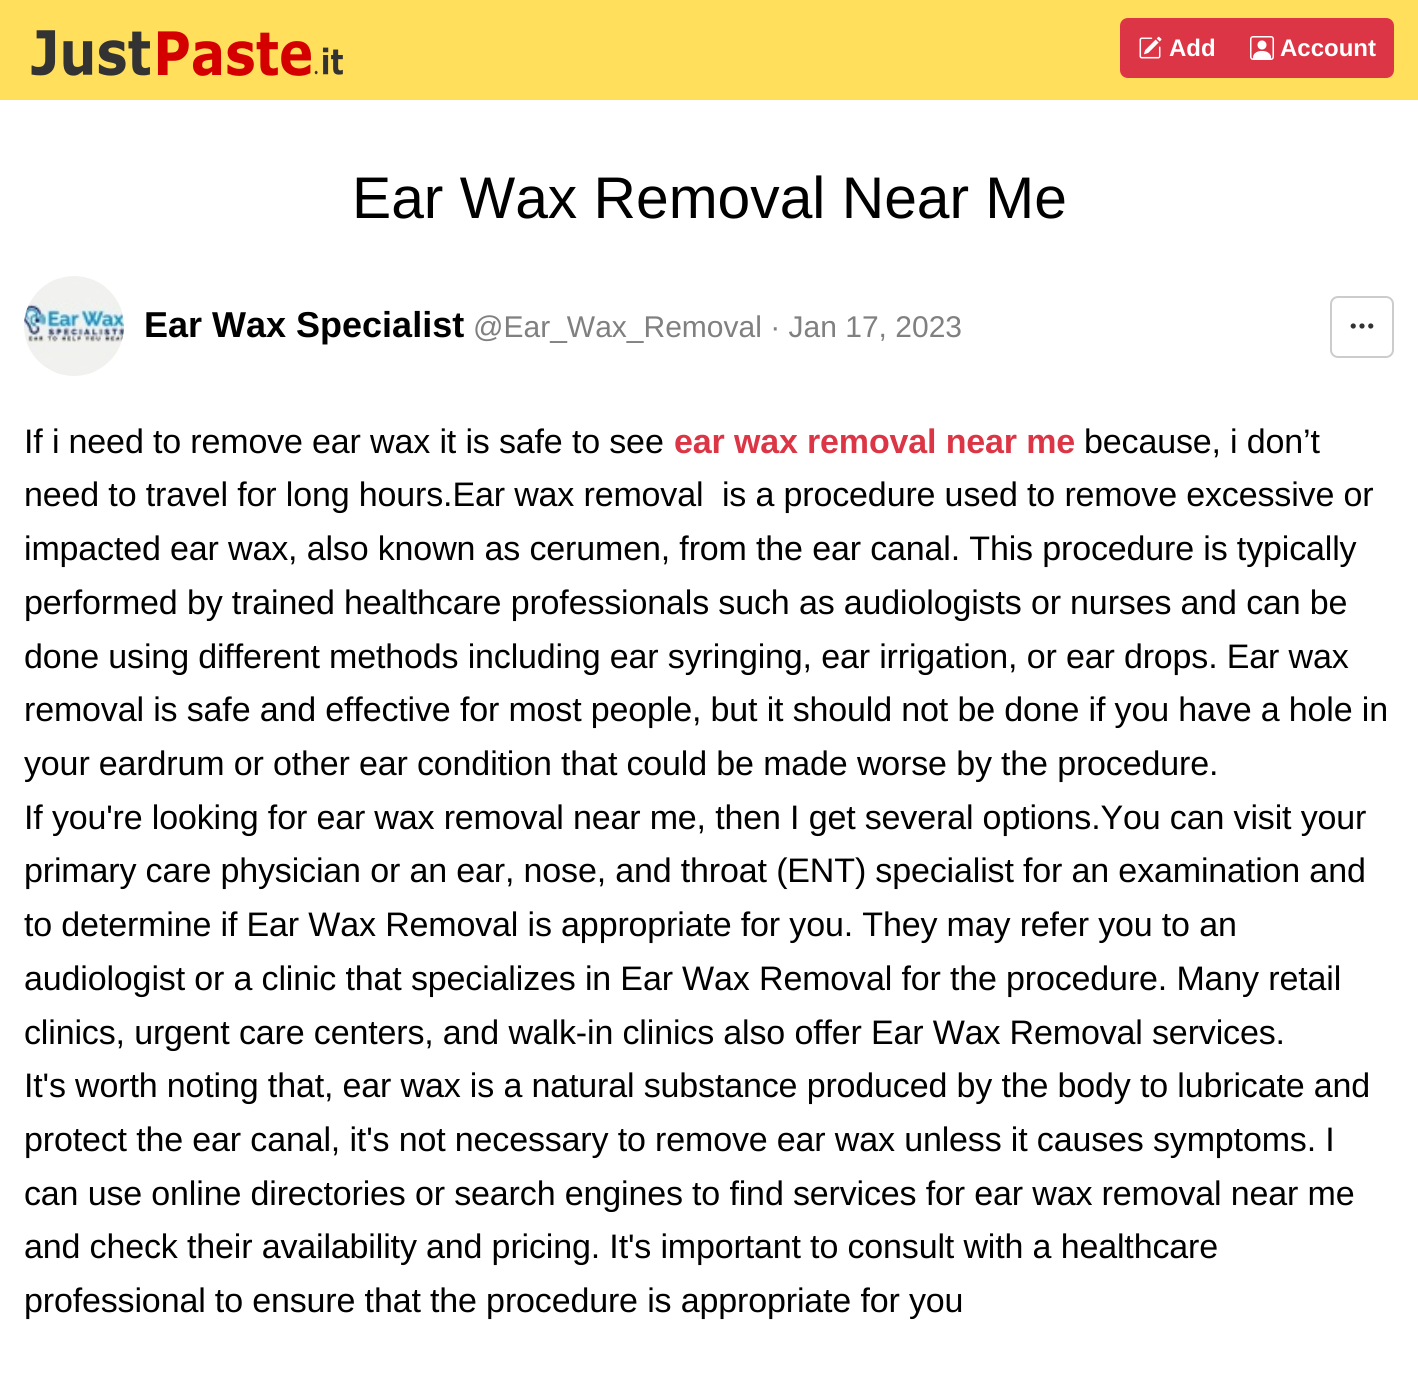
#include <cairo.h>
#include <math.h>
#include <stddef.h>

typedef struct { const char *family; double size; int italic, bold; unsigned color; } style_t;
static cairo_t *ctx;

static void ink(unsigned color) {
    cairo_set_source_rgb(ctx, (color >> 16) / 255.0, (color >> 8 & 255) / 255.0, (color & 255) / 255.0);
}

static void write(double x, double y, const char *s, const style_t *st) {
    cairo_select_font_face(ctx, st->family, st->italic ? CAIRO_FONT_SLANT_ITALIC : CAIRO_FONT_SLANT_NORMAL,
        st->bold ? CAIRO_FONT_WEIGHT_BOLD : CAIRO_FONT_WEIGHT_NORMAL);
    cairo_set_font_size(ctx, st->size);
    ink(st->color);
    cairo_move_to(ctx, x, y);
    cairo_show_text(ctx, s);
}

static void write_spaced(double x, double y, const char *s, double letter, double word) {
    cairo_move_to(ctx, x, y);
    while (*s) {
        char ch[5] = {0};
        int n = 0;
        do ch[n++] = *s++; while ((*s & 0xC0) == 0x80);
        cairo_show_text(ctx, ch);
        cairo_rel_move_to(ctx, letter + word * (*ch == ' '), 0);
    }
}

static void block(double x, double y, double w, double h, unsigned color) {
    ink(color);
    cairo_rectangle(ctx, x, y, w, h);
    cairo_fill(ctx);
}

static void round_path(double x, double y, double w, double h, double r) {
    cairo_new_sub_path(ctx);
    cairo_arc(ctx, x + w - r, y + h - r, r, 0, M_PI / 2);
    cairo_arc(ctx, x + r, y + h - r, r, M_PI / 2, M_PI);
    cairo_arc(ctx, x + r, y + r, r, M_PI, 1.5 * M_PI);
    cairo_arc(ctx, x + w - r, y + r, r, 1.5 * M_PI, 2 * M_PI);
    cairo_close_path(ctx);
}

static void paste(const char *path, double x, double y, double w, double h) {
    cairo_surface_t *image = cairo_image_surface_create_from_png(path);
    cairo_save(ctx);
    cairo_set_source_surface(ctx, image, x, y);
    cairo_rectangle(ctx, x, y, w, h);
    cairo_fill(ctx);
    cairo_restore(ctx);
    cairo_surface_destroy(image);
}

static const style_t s1 = {"Liberation Sans", 24, 0, 1, 0xffffff};
static const style_t s2 = {"Liberation Sans", 58.75, 0, 0, 0x000000};
static const style_t s3 = {"Liberation Sans", 36, 0, 1, 0x000000};
static const style_t s4 = {"Liberation Sans", 30, 0, 0, 0x808080};

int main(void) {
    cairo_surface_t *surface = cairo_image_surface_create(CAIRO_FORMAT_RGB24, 1418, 1385);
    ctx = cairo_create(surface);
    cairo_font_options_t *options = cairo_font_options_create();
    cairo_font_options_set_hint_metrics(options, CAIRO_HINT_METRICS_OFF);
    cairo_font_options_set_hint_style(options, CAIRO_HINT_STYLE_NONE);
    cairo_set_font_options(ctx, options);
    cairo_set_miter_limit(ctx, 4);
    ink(0xffffff);
    cairo_paint(ctx);
    block(0, 0, 1418, 100, 0xffdf5c);
    paste("pic1.png", 31, 30, 312, 46);
    ink(0xdc3545);
    cairo_new_path(ctx);
    cairo_move_to(ctx, 1128, 19);
    cairo_line_to(ctx, 1233, 19);
    cairo_line_to(ctx, 1233, 77);
    cairo_line_to(ctx, 1128, 77);
    cairo_curve_to(ctx, 1124, 77, 1121, 74, 1121, 70);
    cairo_line_to(ctx, 1121, 26);
    cairo_curve_to(ctx, 1121, 22, 1124, 19, 1128, 19);
    cairo_close_path(ctx);
    cairo_fill_preserve(ctx);
    cairo_stroke(ctx);
    paste("pic2.png", 1139, 36, 23, 23);
    write(1169, 56, "Add", &s1);
    ink(0xdc3545);
    cairo_new_path(ctx);
    cairo_move_to(ctx, 1233, 19);
    cairo_line_to(ctx, 1386, 19);
    cairo_curve_to(ctx, 1390, 19, 1393, 22, 1393, 26);
    cairo_line_to(ctx, 1393, 70);
    cairo_curve_to(ctx, 1393, 74, 1390, 77, 1386, 77);
    cairo_line_to(ctx, 1233, 77);
    cairo_close_path(ctx);
    cairo_fill_preserve(ctx);
    cairo_stroke(ctx);
    paste("pic3.png", 1250, 36, 24, 24);
    write(1280, 56, "Account", &s1);
    write(352, 218, "Ear Wax Removal Near Me", &s2);
    paste("pic4.png", 24, 276, 100, 100);
    write(144, 337, "Ear Wax Specialist", &s3);
    write(473, 337, "@Ear_Wax_Removal · Jan 17, 2023", &s4);
    round_path(1331, 297, 62, 60, 7);
    ink(0xcccccc);
    cairo_stroke(ctx);
    paste("pic5.png", 1350, 323, 24, 6);
    cairo_set_font_size(ctx, 34);
    ink(0x000000);
    write_spaced(24, 453, "If i need to remove ear wax it is safe to see", -0.15, 0);
    cairo_select_font_face(ctx, "Liberation Sans", CAIRO_FONT_SLANT_NORMAL, CAIRO_FONT_WEIGHT_BOLD);
    ink(0xdc3545);
    write_spaced(674, 453, "ear wax removal near me", -0.15, 0);
    cairo_select_font_face(ctx, "Liberation Sans", CAIRO_FONT_SLANT_NORMAL, CAIRO_FONT_WEIGHT_NORMAL);
    ink(0x000000);
    write_spaced(1084, 453, "because, i don’t", -0.15, 0);
    write_spaced(24, 506, "need to travel for long hours.Ear wax removal  is a procedure used to remove excessive or", -0.15, 0);
    write_spaced(24, 560, "impacted ear wax, also known as cerumen, from the ear canal. This procedure is typically", -0.15, 0);
    write_spaced(24, 614, "performed by trained healthcare professionals such as audiologists or nurses and can be", -0.15, 0);
    write_spaced(24, 668, "done using different methods including ear syringing, ear irrigation, or ear drops. Ear wax", -0.15, 0);
    write_spaced(24, 721, "removal is safe and effective for most people, but it should not be done if you have a hole in", -0.15, 0);
    write_spaced(24, 775, "your eardrum or other ear condition that could be made worse by the procedure.", -0.15, 0);
    write_spaced(24, 829, "If you're looking for ear wax removal near me, then I get several options.You can visit your", -0.15, 0);
    write_spaced(24, 882, "primary care physician or an ear, nose, and throat (ENT) specialist for an examination and", -0.15, 0);
    write_spaced(24, 936, "to determine if Ear Wax Removal is appropriate for you. They may refer you to an", -0.15, 0);
    write_spaced(24, 990, "audiologist or a clinic that specializes in Ear Wax Removal for the procedure. Many retail", -0.15, 0);
    write_spaced(24, 1044, "clinics, urgent care centers, and walk-in clinics also offer Ear Wax Removal services.", -0.15, 0);
    write_spaced(24, 1097, "It's worth noting that, ear wax is a natural substance produced by the body to lubricate and", -0.15, 0);
    write_spaced(24, 1151, "protect the ear canal, it's not necessary to remove ear wax unless it causes symptoms. I", -0.15, 0);
    write_spaced(24, 1205, "can use online directories or search engines to find services for ear wax removal near me", -0.15, 0);
    write_spaced(24, 1258, "and check their availability and pricing. It's important to consult with a healthcare", -0.15, 0);
    write_spaced(24, 1312, "professional to ensure that the procedure is appropriate for you", -0.15, 0);
    cairo_surface_write_to_png(surface, "screenshot.png");
    cairo_font_options_destroy(options);
    cairo_destroy(ctx);
    cairo_surface_destroy(surface);
    return 0;
}
